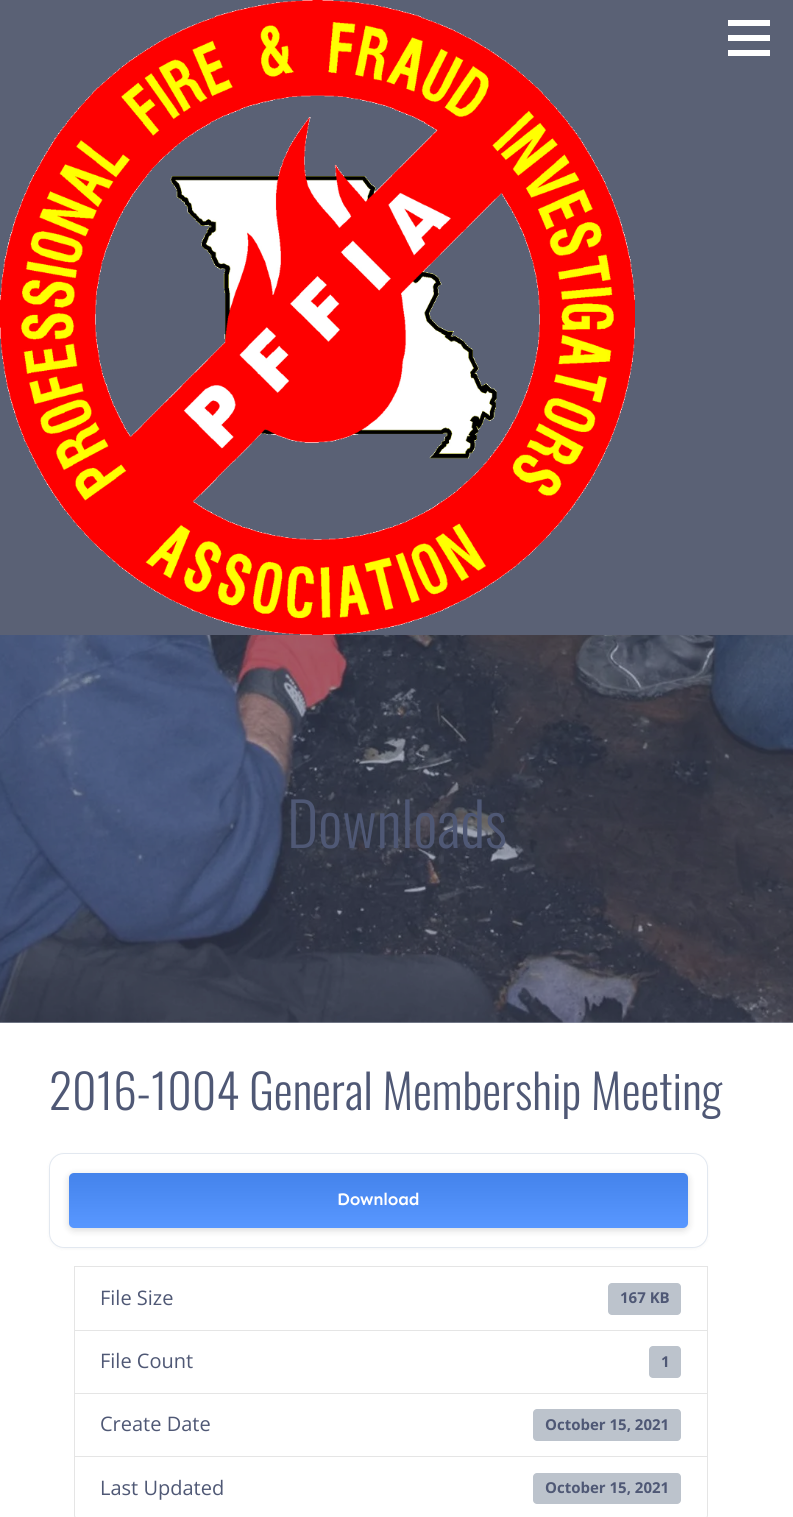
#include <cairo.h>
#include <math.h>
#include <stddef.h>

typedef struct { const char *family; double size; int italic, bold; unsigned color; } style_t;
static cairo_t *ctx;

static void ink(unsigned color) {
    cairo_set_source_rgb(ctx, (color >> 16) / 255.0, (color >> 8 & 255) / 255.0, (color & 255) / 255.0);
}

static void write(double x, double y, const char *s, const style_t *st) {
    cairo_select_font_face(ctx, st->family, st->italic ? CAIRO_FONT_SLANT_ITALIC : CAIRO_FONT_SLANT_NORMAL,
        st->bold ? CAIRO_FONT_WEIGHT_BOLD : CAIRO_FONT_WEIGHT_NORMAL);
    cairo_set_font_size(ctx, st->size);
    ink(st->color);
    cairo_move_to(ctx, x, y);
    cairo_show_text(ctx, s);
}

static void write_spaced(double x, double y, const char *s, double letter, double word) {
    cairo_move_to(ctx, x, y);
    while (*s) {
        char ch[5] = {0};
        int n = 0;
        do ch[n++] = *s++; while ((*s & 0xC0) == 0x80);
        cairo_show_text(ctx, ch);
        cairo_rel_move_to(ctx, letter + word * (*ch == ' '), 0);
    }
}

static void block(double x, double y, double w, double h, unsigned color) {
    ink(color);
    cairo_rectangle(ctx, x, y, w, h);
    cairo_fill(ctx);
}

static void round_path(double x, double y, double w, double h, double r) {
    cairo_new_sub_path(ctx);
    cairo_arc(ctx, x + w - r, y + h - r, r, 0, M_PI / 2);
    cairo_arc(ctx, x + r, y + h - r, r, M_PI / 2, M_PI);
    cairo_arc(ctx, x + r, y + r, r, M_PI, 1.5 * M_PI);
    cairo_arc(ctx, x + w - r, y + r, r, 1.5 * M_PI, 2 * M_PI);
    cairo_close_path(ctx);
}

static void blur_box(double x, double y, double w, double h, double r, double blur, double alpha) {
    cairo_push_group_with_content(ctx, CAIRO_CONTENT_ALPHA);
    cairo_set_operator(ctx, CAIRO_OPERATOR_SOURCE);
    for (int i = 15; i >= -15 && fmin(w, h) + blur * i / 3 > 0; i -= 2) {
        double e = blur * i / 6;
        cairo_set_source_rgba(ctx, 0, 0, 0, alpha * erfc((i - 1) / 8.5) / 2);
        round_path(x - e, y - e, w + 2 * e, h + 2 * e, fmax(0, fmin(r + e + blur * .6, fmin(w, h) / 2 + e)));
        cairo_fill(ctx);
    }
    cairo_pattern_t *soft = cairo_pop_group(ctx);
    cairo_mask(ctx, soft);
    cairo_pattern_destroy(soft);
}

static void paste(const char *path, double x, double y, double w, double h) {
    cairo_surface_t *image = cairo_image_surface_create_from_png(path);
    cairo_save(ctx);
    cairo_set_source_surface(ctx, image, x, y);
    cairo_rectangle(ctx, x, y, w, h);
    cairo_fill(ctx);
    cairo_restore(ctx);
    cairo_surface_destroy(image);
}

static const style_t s1 = {"Oswald Light", 60, 0, 0, 0x4f5875};
static const style_t s2 = {"Oswald Light", 47.5, 0, 0, 0x4f5875};
static const style_t s3 = {"Open Sans", 20, 0, 0, 0x4f5875};
static const style_t s4 = {"Open Sans", 15, 0, 1, 0x4f5875};

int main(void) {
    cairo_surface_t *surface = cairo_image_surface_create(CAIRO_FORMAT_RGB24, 793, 1517);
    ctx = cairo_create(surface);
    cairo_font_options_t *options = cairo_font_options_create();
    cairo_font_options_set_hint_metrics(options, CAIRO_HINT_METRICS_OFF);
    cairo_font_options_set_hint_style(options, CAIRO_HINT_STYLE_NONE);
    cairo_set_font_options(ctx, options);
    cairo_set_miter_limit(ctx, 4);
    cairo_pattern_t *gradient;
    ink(0xffffff);
    cairo_paint(ctx);
    block(0, 1022, 793, 1, 0xa7acba);
    paste("pic1.png", 0, 635, 793, 388);
    block(0, 0, 793, 635, 0x5a6175);
    paste("pic2.png", 0, 0, 635, 635);
    block(728, 20, 42, 6, 0xffffff);
    block(728, 35, 42, 6, 0xffffff);
    block(728, 50, 42, 6, 0xffffff);
    write(287, 848, "Downloads", &s1);
    write(49, 1110, "2016-1004 General Membership Meeting", &s2);
    ink(0x000000);
    blur_box(49, 1154, 659, 95, 15, 2, 0.04);
    ink(0xffffff);
    round_path(49.5, 1153.5, 658, 94, 14.5);
    cairo_fill_preserve(ctx);
    ink(0xe2e8f0);
    cairo_set_line_width(ctx, 1);
    cairo_stroke(ctx);
    ink(0x000000);
    blur_box(69, 1175, 619, 55, 5, 4, 0.15);
    ink(0x4a8eff);
    round_path(69, 1173, 619, 55, 5);
    cairo_fill(ctx);
    gradient = cairo_pattern_create_linear(378, 1173, 378, 1228);
    cairo_pattern_add_color_stop_rgba(gradient, 0, 0, 0, 0, 0.08);
    cairo_pattern_add_color_stop_rgba(gradient, 1, 1, 1, 1, 0.08);
    cairo_set_source(ctx, gradient);
    cairo_pattern_destroy(gradient);
    round_path(69, 1173, 619, 55, 5);
    cairo_fill(ctx);
    cairo_select_font_face(ctx, "Sen SemiBold", CAIRO_FONT_SLANT_NORMAL, CAIRO_FONT_WEIGHT_NORMAL);
    cairo_set_font_size(ctx, 17.5);
    ink(0xffffff);
    write_spaced(337, 1205, "Download", -0.25, 0);
    cairo_rectangle(ctx, 74.5, 1266.5, 633, 64);
    ink(0xe5e5e5);
    cairo_stroke(ctx);
    write(100, 1305, "File Size", &s3);
    ink(0xbcc3cc);
    round_path(608, 1283, 73, 32, 4);
    cairo_fill(ctx);
    write(620, 1303, "167 KB", &s4);
    cairo_rectangle(ctx, 74.5, 1330.5, 633, 63);
    ink(0xe5e5e5);
    cairo_stroke(ctx);
    write(100, 1368, "File Count", &s3);
    ink(0xbcc3cc);
    round_path(649, 1346, 32, 32, 4);
    cairo_fill(ctx);
    write(661, 1367, "1", &s4);
    cairo_rectangle(ctx, 74.5, 1393.5, 633, 64);
    ink(0xe5e5e5);
    cairo_stroke(ctx);
    write(100, 1431, "Create Date", &s3);
    ink(0xbcc3cc);
    round_path(533, 1409, 148, 32, 4);
    cairo_fill(ctx);
    write(545, 1430, "October 15, 2021", &s4);
    ink(0xffffff);
    cairo_new_path(ctx);
    cairo_move_to(ctx, 74.5, 1456.5);
    cairo_line_to(ctx, 707.5, 1456.5);
    cairo_line_to(ctx, 707.5, 1515);
    cairo_curve_to(ctx, 707.5, 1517.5, 705.5, 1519.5, 703, 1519.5);
    cairo_line_to(ctx, 79, 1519.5);
    cairo_curve_to(ctx, 76.5, 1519.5, 74.5, 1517.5, 74.5, 1515);
    cairo_close_path(ctx);
    cairo_fill_preserve(ctx);
    ink(0xe5e5e5);
    cairo_stroke(ctx);
    write(100, 1495, "Last Updated", &s3);
    ink(0xbcc3cc);
    round_path(533, 1473, 148, 31, 4);
    cairo_fill(ctx);
    write(545, 1493, "October 15, 2021", &s4);
    cairo_surface_write_to_png(surface, "screenshot.png");
    cairo_font_options_destroy(options);
    cairo_destroy(ctx);
    cairo_surface_destroy(surface);
    return 0;
}
